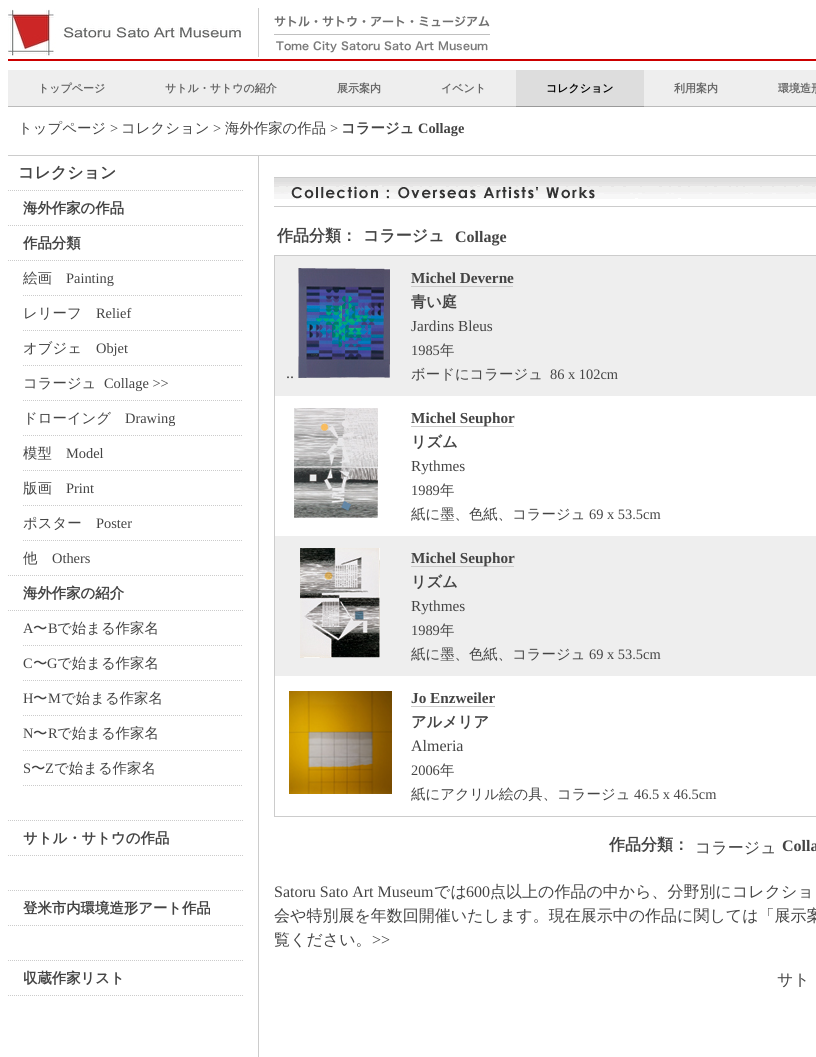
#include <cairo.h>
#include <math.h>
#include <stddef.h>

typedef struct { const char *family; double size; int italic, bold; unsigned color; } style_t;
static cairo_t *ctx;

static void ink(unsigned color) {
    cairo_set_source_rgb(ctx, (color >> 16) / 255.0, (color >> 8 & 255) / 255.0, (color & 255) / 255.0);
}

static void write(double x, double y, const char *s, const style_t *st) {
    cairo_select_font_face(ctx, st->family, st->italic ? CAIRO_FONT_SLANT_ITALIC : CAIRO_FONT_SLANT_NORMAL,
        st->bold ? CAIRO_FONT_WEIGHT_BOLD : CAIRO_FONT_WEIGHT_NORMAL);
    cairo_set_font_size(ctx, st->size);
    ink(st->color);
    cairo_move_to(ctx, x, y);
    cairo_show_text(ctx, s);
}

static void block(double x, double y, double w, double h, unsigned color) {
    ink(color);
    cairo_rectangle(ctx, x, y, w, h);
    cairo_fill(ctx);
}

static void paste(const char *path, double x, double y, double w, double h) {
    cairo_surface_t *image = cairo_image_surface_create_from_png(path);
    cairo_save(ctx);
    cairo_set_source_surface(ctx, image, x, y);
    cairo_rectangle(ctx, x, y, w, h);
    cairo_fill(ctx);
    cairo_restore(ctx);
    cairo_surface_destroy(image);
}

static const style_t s1 = {"WenQuanYi Zen Hei", 11, 0, 1, 0x666666};
static const style_t s2 = {"WenQuanYi Zen Hei", 11, 0, 1, 0x000000};
static const style_t s3 = {"WenQuanYi Zen Hei Medium", 14.4, 0, 0, 0x444444};
static const style_t s4 = {"Liberation Serif", 14.4, 0, 0, 0x444444};
static const style_t s5 = {"WenQuanYi Zen Hei", 14.4, 0, 1, 0x444444};
static const style_t s6 = {"Liberation Serif", 14.4, 0, 1, 0x444444};
static const style_t s7 = {"WenQuanYi Zen Hei", 16, 0, 1, 0x444444};
static const style_t s8 = {"Liberation Serif", 16, 0, 1, 0x444444};
static const style_t s9 = {"Liberation Serif", 16, 0, 0, 0x444444};
static const style_t s10 = {"Liberation Serif", 15.25, 0, 1, 0x444444};
static const style_t s11 = {"WenQuanYi Zen Hei", 15.25, 0, 1, 0x444444};
static const style_t s12 = {"Liberation Serif", 15.25, 0, 0, 0x444444};
static const style_t s13 = {"WenQuanYi Zen Hei Medium", 16, 0, 0, 0x444444};

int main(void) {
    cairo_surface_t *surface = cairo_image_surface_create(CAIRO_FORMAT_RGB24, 816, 1057);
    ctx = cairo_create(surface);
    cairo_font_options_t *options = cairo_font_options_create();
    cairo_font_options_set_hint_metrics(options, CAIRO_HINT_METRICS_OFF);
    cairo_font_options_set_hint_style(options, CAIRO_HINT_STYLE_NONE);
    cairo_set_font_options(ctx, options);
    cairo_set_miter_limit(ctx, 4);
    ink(0xffffff);
    cairo_paint(ctx);
    block(8, 59, 808, 2, 0xcc0000);
    paste("pic1.png", 8, 9, 233, 47);
    block(258, 8, 1, 49, 0xcccccc);
    paste("pic2.png", 274, 16, 216, 37);
    block(8, 70, 808, 36, 0xeeeeee);
    block(8, 106, 808, 1, 0xbbbbbb);
    write(38, 92, "トップページ", &s1);
    write(165, 92, "サトル・サトウの紹介", &s1);
    write(337, 92, "展示案内", &s1);
    write(441, 92, "イベント", &s1);
    block(516, 70, 128, 36, 0xdddddd);
    block(516, 106, 128, 1, 0x999999);
    write(546, 92, "コレクション", &s2);
    write(674, 92, "利用案内", &s1);
    write(778, 92, "環境造形", &s1);
    write(18, 133, "トップページ", &s3);
    write(110, 133, ">", &s4);
    write(121, 133, "コレクション", &s3);
    write(213, 133, ">", &s4);
    write(225, 133, "海外作家の作品", &s3);
    write(330, 133, ">", &s4);
    write(341, 133, "コラージュ", &s5);
    write(418, 133, "Collage", &s6);
    block(8, 155, 808, 1, 0xcccccc);
    cairo_new_path(ctx);
    cairo_move_to(ctx, 8, 190.5);
    cairo_line_to(ctx, 243, 190.5);
    cairo_set_line_width(ctx, 1);
    cairo_set_dash(ctx, (double[]){1, 1}, 2, 0);
    cairo_stroke(ctx);
    write(18, 178, "コレクション", &s7);
    cairo_new_path(ctx);
    cairo_move_to(ctx, 8, 225.5);
    cairo_line_to(ctx, 243, 225.5);
    ink(0xcccccc);
    cairo_stroke(ctx);
    write(23, 213, "海外作家の作品", &s5);
    cairo_new_path(ctx);
    cairo_move_to(ctx, 8, 260.5);
    cairo_line_to(ctx, 243, 260.5);
    ink(0xcccccc);
    cairo_stroke(ctx);
    write(23, 248, "作品分類", &s5);
    cairo_new_path(ctx);
    cairo_move_to(ctx, 23, 295.5);
    cairo_line_to(ctx, 243, 295.5);
    ink(0xcccccc);
    cairo_stroke(ctx);
    write(23, 283, "絵画", &s3);
    write(66, 283, "Painting", &s4);
    cairo_new_path(ctx);
    cairo_move_to(ctx, 23, 330.5);
    cairo_line_to(ctx, 243, 330.5);
    ink(0xcccccc);
    cairo_stroke(ctx);
    write(23, 318, "レリーフ", &s3);
    write(96, 318, "Relief", &s4);
    cairo_new_path(ctx);
    cairo_move_to(ctx, 23, 365.5);
    cairo_line_to(ctx, 243, 365.5);
    ink(0xcccccc);
    cairo_stroke(ctx);
    write(23, 353, "オブジェ", &s3);
    write(96, 353, "Objet", &s4);
    cairo_new_path(ctx);
    cairo_move_to(ctx, 23, 400.5);
    cairo_line_to(ctx, 243, 400.5);
    ink(0xcccccc);
    cairo_stroke(ctx);
    write(23, 388, "コラージュ", &s3);
    write(104, 388, "Collage >>", &s4);
    cairo_new_path(ctx);
    cairo_move_to(ctx, 23, 435.5);
    cairo_line_to(ctx, 243, 435.5);
    ink(0xcccccc);
    cairo_stroke(ctx);
    write(23, 423, "ドローイング", &s3);
    write(125, 423, "Drawing", &s4);
    cairo_new_path(ctx);
    cairo_move_to(ctx, 23, 470.5);
    cairo_line_to(ctx, 243, 470.5);
    ink(0xcccccc);
    cairo_stroke(ctx);
    write(23, 458, "模型", &s3);
    write(66, 458, "Model", &s4);
    cairo_new_path(ctx);
    cairo_move_to(ctx, 23, 505.5);
    cairo_line_to(ctx, 243, 505.5);
    ink(0xcccccc);
    cairo_stroke(ctx);
    write(23, 493, "版画", &s3);
    write(66, 493, "Print", &s4);
    cairo_new_path(ctx);
    cairo_move_to(ctx, 23, 540.5);
    cairo_line_to(ctx, 243, 540.5);
    ink(0xcccccc);
    cairo_stroke(ctx);
    write(23, 528, "ポスター", &s3);
    write(96, 528, "Poster", &s4);
    cairo_new_path(ctx);
    cairo_move_to(ctx, 8, 575.5);
    cairo_line_to(ctx, 243, 575.5);
    ink(0xcccccc);
    cairo_stroke(ctx);
    write(23, 563, "他", &s3);
    write(52, 563, "Others", &s4);
    cairo_new_path(ctx);
    cairo_move_to(ctx, 8, 610.5);
    cairo_line_to(ctx, 243, 610.5);
    ink(0xcccccc);
    cairo_stroke(ctx);
    write(23, 598, "海外作家の紹介", &s5);
    cairo_new_path(ctx);
    cairo_move_to(ctx, 23, 645.5);
    cairo_line_to(ctx, 243, 645.5);
    ink(0xcccccc);
    cairo_stroke(ctx);
    write(23, 633, "A", &s4);
    write(33, 633, "〜", &s3);
    write(48, 633, "B", &s4);
    write(57, 633, "で始まる作家名", &s3);
    cairo_new_path(ctx);
    cairo_move_to(ctx, 23, 680.5);
    cairo_line_to(ctx, 243, 680.5);
    ink(0xcccccc);
    cairo_stroke(ctx);
    write(23, 668, "C", &s4);
    write(33, 668, "〜", &s3);
    write(47, 668, "G", &s4);
    write(57, 668, "で始まる作家名", &s3);
    cairo_new_path(ctx);
    cairo_move_to(ctx, 23, 715.5);
    cairo_line_to(ctx, 243, 715.5);
    ink(0xcccccc);
    cairo_stroke(ctx);
    write(23, 703, "H", &s4);
    write(33, 703, "〜", &s3);
    write(48, 703, "M", &s4);
    write(61, 703, "で始まる作家名", &s3);
    cairo_new_path(ctx);
    cairo_move_to(ctx, 23, 750.5);
    cairo_line_to(ctx, 243, 750.5);
    ink(0xcccccc);
    cairo_stroke(ctx);
    write(23, 738, "N", &s4);
    write(33, 738, "〜", &s3);
    write(48, 738, "R", &s4);
    write(57, 738, "で始まる作家名", &s3);
    cairo_new_path(ctx);
    cairo_move_to(ctx, 23, 785.5);
    cairo_line_to(ctx, 243, 785.5);
    ink(0xcccccc);
    cairo_stroke(ctx);
    write(23, 773, "S", &s4);
    write(31, 773, "〜", &s3);
    write(45, 773, "Z", &s4);
    write(54, 773, "で始まる作家名", &s3);
    cairo_new_path(ctx);
    cairo_move_to(ctx, 8, 820.5);
    cairo_line_to(ctx, 243, 820.5);
    ink(0xcccccc);
    cairo_stroke(ctx);
    cairo_new_path(ctx);
    cairo_move_to(ctx, 8, 855.5);
    cairo_line_to(ctx, 243, 855.5);
    cairo_stroke(ctx);
    write(23, 843, "サトル・サトウの作品", &s5);
    cairo_new_path(ctx);
    cairo_move_to(ctx, 8, 890.5);
    cairo_line_to(ctx, 243, 890.5);
    ink(0xcccccc);
    cairo_stroke(ctx);
    cairo_new_path(ctx);
    cairo_move_to(ctx, 8, 925.5);
    cairo_line_to(ctx, 243, 925.5);
    cairo_stroke(ctx);
    write(23, 913, "登米市内環境造形アート作品", &s5);
    cairo_new_path(ctx);
    cairo_move_to(ctx, 8, 960.5);
    cairo_line_to(ctx, 243, 960.5);
    ink(0xcccccc);
    cairo_stroke(ctx);
    cairo_new_path(ctx);
    cairo_move_to(ctx, 8, 995.5);
    cairo_line_to(ctx, 243, 995.5);
    cairo_stroke(ctx);
    write(23, 983, "収蔵作家リスト", &s5);
    block(258, 156, 1, 901, 0xcccccc);
    paste("pic3.png", 274, 177, 542, 30);
    write(277, 241, "作品分類：", &s7);
    write(363, 241, "コラージュ", &s7);
    write(455, 242, "Collage", &s8);
    block(274, 255, 542, 1, 0xcccccc);
    block(274, 816, 542, 1, 0xcccccc);
    block(274, 255, 1, 562, 0xcccccc);
    block(275, 256, 541, 140, 0xeeeeee);
    write(286, 378, "..", &s9);
    paste("pic4.png", 298, 268, 92, 110);
    write(411, 283, "Michel Deverne", &s10);
    block(411, 286, 102, 1, 0xcccccc);
    write(411, 307, "青い庭", &s11);
    write(411, 331, "Jardins Bleus", &s12);
    write(411, 355, "1985", &s4);
    write(440, 355, "年", &s3);
    write(411, 379, "ボードにコラージュ", &s3);
    write(550, 379, "86 x 102cm", &s4);
    paste("pic5.png", 294, 408, 84, 110);
    block(411, 426, 103, 1, 0xcccccc);
    write(411, 423, "Michel Seuphor", &s10);
    write(411, 447, "リズム", &s11);
    write(411, 471, "Rythmes", &s12);
    write(411, 495, "1989", &s4);
    write(440, 495, "年", &s3);
    write(411, 519, "紙に墨、色紙、コラージュ", &s3);
    write(589, 519, "69 x 53.5cm", &s4);
    block(275, 536, 541, 140, 0xeeeeee);
    paste("pic6.png", 300, 548, 80, 110);
    block(411, 566, 103, 1, 0xcccccc);
    write(411, 563, "Michel Seuphor", &s10);
    write(411, 587, "リズム", &s11);
    write(411, 611, "Rythmes", &s12);
    write(411, 635, "1989", &s4);
    write(440, 635, "年", &s3);
    write(411, 659, "紙に墨、色紙、コラージュ", &s3);
    write(589, 659, "69 x 53.5cm", &s4);
    paste("pic7.png", 289, 691, 103, 103);
    write(411, 703, "Jo Enzweiler", &s10);
    block(411, 706, 84, 1, 0xcccccc);
    write(411, 727, "アルメリア", &s11);
    write(411, 751, "Almeria", &s9);
    write(411, 775, "2006", &s4);
    write(440, 775, "年", &s3);
    write(411, 799, "紙にアクリル絵の具、コラージュ", &s3);
    write(634, 799, "46.5 x 46.5cm", &s4);
    write(609, 850, "作品分類：", &s7);
    write(695, 853, "コラージュ", &s13);
    write(782, 851, "Colla", &s8);
    write(274, 897, "Satoru Sato Art Museum", &s9);
    write(434, 897, "では", &s13);
    write(466, 897, "600", &s9);
    write(490, 897, "点以上の作品の中から、分野別にコレクショ", &s13);
    write(274, 921, "会や特別展を年数回開催いたします。現在展示中の作品に関しては「展示案", &s13);
    write(274, 945, "覧ください。", &s13);
    write(372, 945, ">>", &s9);
    write(777, 985, "サト", &s13);
    cairo_surface_write_to_png(surface, "screenshot.png");
    cairo_font_options_destroy(options);
    cairo_destroy(ctx);
    cairo_surface_destroy(surface);
    return 0;
}
